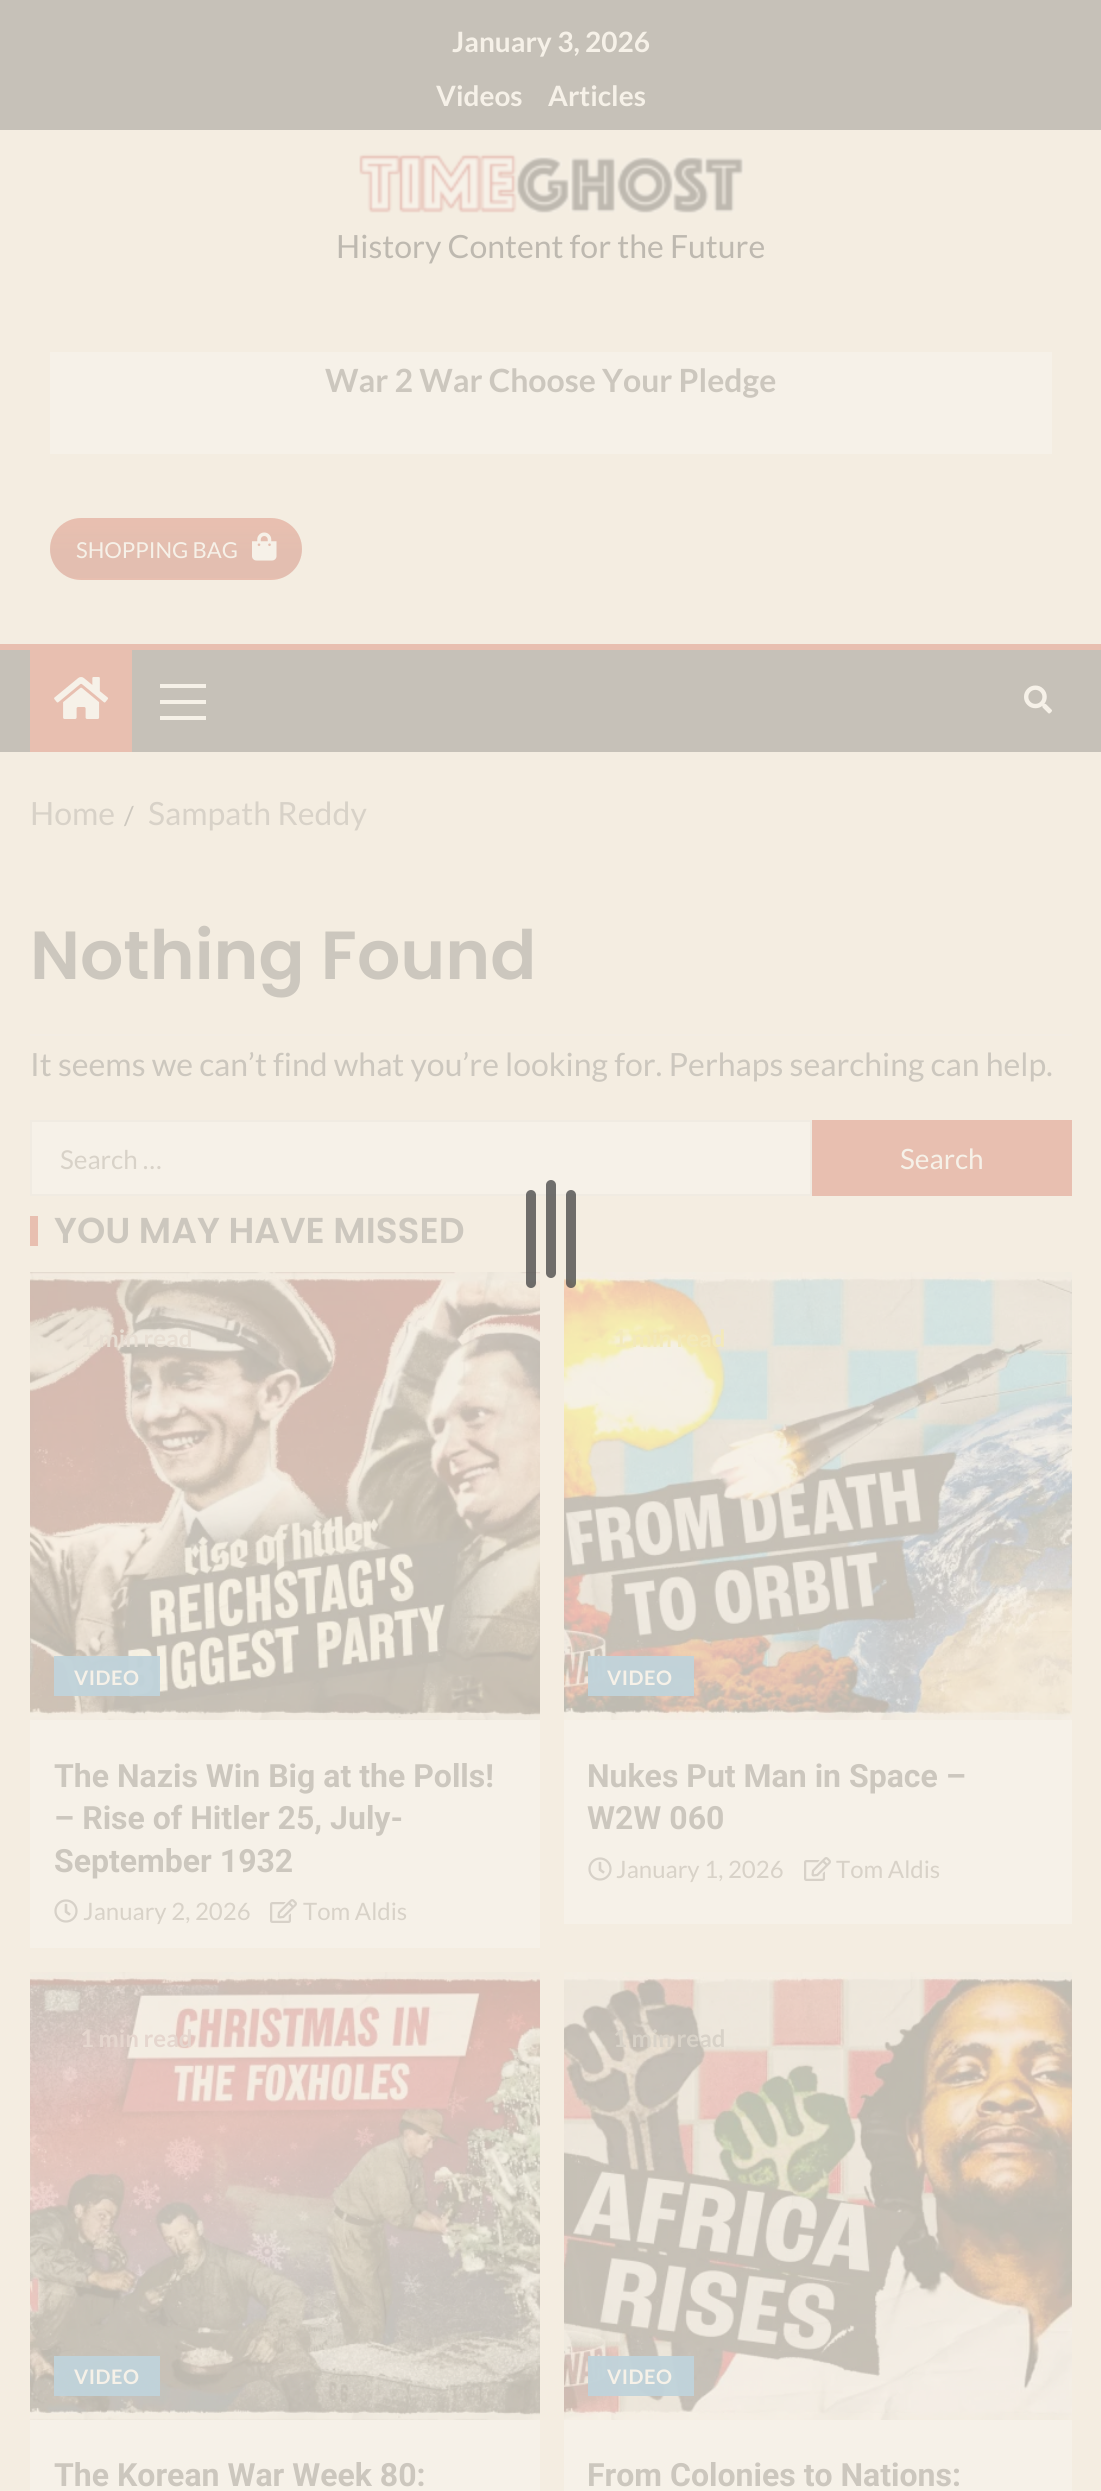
#include <cairo.h>
#include <math.h>
#include <stddef.h>

typedef struct { const char *family; double size; int italic, bold; unsigned color; } style_t;
static cairo_t *ctx;

static void ink(unsigned color) {
    cairo_set_source_rgb(ctx, (color >> 16) / 255.0, (color >> 8 & 255) / 255.0, (color & 255) / 255.0);
}

static void write(double x, double y, const char *s, const style_t *st) {
    cairo_select_font_face(ctx, st->family, st->italic ? CAIRO_FONT_SLANT_ITALIC : CAIRO_FONT_SLANT_NORMAL,
        st->bold ? CAIRO_FONT_WEIGHT_BOLD : CAIRO_FONT_WEIGHT_NORMAL);
    cairo_set_font_size(ctx, st->size);
    ink(st->color);
    cairo_move_to(ctx, x, y);
    cairo_show_text(ctx, s);
}

static void write_spaced(double x, double y, const char *s, double letter, double word) {
    cairo_move_to(ctx, x, y);
    while (*s) {
        char ch[5] = {0};
        int n = 0;
        do ch[n++] = *s++; while ((*s & 0xC0) == 0x80);
        cairo_show_text(ctx, ch);
        cairo_rel_move_to(ctx, letter + word * (*ch == ' '), 0);
    }
}

static void block(double x, double y, double w, double h, unsigned color) {
    ink(color);
    cairo_rectangle(ctx, x, y, w, h);
    cairo_fill(ctx);
}

static void round_path(double x, double y, double w, double h, double r) {
    cairo_new_sub_path(ctx);
    cairo_arc(ctx, x + w - r, y + h - r, r, 0, M_PI / 2);
    cairo_arc(ctx, x + r, y + h - r, r, M_PI / 2, M_PI);
    cairo_arc(ctx, x + r, y + r, r, M_PI, 1.5 * M_PI);
    cairo_arc(ctx, x + w - r, y + r, r, 1.5 * M_PI, 2 * M_PI);
    cairo_close_path(ctx);
}

static void paste(const char *path, double x, double y, double w, double h) {
    cairo_surface_t *image = cairo_image_surface_create_from_png(path);
    cairo_save(ctx);
    cairo_set_source_surface(ctx, image, x, y);
    cairo_rectangle(ctx, x, y, w, h);
    cairo_fill(ctx);
    cairo_restore(ctx);
    cairo_surface_destroy(image);
}

static const style_t s1 = {"Lato", 28, 0, 1, 0xf6f1e8};
static const style_t s2 = {"Lato", 32, 0, 0, 0xbeb9b0};
static const style_t s3 = {"Lato", 32, 0, 1, 0xccc7be};
static const style_t s4 = {"Lato", 22, 0, 0, 0xf6f1e8};
static const style_t s5 = {"Lato", 32, 0, 0, 0xd8d2c8};
static const style_t s6 = {"Lato", 26, 0, 0, 0xccc7be};
static const style_t s7 = {"Poppins SemiBold", 68, 0, 0, 0xccc7be};
static const style_t s8 = {"Lato", 32, 0, 0, 0xccc7be};
static const style_t s9 = {"Lato", 26, 0, 0, 0xd8d2c8};
static const style_t s10 = {"Lato", 28, 0, 0, 0xf6f1e8};
static const style_t s11 = {"Poppins SemiBold", 36, 0, 0, 0xccc7be};
static const style_t s12 = {"Lato", 24, 0, 1, 0xe7ded3};
static const style_t s13 = {"Roboto", 32, 0, 1, 0xccc7be};
static const style_t s14 = {"Lato", 24, 0, 0, 0xd8d2c8};
static const style_t s15 = {"Lato", 24, 0, 1, 0xf3e9bb};
static const style_t s16 = {"Lato", 24, 0, 1, 0xe5d6ce};
static const style_t s17 = {"Lato", 24, 0, 1, 0xd8d2c8};

int main(void) {
    cairo_surface_t *surface = cairo_image_surface_create(CAIRO_FORMAT_RGB24, 1101, 2491);
    ctx = cairo_create(surface);
    cairo_font_options_t *options = cairo_font_options_create();
    cairo_font_options_set_hint_metrics(options, CAIRO_HINT_METRICS_OFF);
    cairo_font_options_set_hint_style(options, CAIRO_HINT_STYLE_NONE);
    cairo_set_font_options(ctx, options);
    cairo_set_miter_limit(ctx, 4);
    cairo_pattern_t *gradient;
    ink(0xf4ede1);
    cairo_paint(ctx);
    block(0, 0, 1101, 130, 0xc6c1b8);
    write(452, 52, "January 3, 2026", &s1);
    write(436, 106, "Videos", &s1);
    write(548, 106, "Articles", &s1);
    paste("pic1.png", 359, 153, 385, 61);
    write(336, 258, "History Content for the Future", &s2);
    block(50, 352, 1002, 102, 0xf6f1e8);
    write(325, 392, "War 2 War Choose Your Pledge", &s3);
    ink(0xe8bfb0);
    round_path(50, 518, 252, 62, 31);
    cairo_fill(ctx);
    cairo_save(ctx);
    round_path(50, 518, 252, 62, 31);
    cairo_clip(ctx);
    gradient = cairo_pattern_create_linear(300, 520, 300, 578);
    cairo_pattern_add_color_stop_rgba(gradient, 0, 0.745, 0.725, 0.69, 0);
    cairo_pattern_add_color_stop_rgba(gradient, 0.5, 0.745, 0.725, 0.69, 0.1);
    cairo_pattern_add_color_stop_rgba(gradient, 1, 0.745, 0.725, 0.69, 0.1);
    cairo_set_source(ctx, gradient);
    cairo_pattern_destroy(gradient);
    cairo_rectangle(ctx, 50, 526, 252, 52);
    cairo_fill(ctx);
    cairo_restore(ctx);
    write(76, 558, "SHOPPING BAG", &s4);
    paste("pic2.png", 252, 532, 25, 29);
    block(0, 650, 1101, 102, 0xc6c1b8);
    block(0, 644, 1101, 6, 0xe8bfb0);
    block(30, 650, 102, 102, 0xe8bfb0);
    paste("pic3.png", 54, 677, 55, 42);
    block(160, 700, 46, 4, 0xf6f1e8);
    block(160, 684, 46, 4, 0xf6f1e8);
    block(160, 716, 46, 4, 0xf6f1e8);
    paste("pic4.png", 1024, 685, 28, 29);
    write(30, 825, "Home", &s5);
    write(124, 825, "/", &s6);
    write(148, 825, "Sampath Reddy", &s5);
    block(30, 1034, 1042, 2, 0xf3ede4);
    write(30, 979, "Nothing Found", &s7);
    write(30, 1076, "It seems we can’t find what you’re looking for. Perhaps searching can help.", &s8);
    ink(0xf6f1e8);
    cairo_rectangle(ctx, 31, 1121, 780, 74);
    cairo_fill_preserve(ctx);
    ink(0xf0ebe2);
    cairo_stroke(ctx);
    write(60, 1169, "Search …", &s9);
    block(812, 1120, 260, 76, 0xe8bfb0);
    write(900, 1169, "Search", &s10);
    block(30, 1216, 8, 30, 0xe8bfb0);
    write(54, 1243, "YOU MAY HAVE MISSED", &s11);
    paste("pic5.png", 30, 1272, 510, 448);
    write(80, 1347, "1 min read", &s12);
    cairo_set_source_rgba(ctx, 0.753, 0.827, 0.859, 0.95);
    cairo_rectangle(ctx, 54, 1656, 106, 40);
    cairo_fill(ctx);
    cairo_set_font_size(ctx, 20);
    ink(0xf6f1e8);
    write_spaced(74, 1685, "VIDEO", 0.5, 0);
    block(30, 1720, 510, 228, 0xf6f1e8);
    write(54, 1787, "The Nazis Win Big at the Polls!", &s13);
    write(54, 1829, "– Rise of Hitler 25, July-", &s13);
    write(54, 1872, "September 1932", &s13);
    paste("pic6.png", 54, 1899, 24, 24);
    write(83, 1920, "January 2, 2026", &s14);
    paste("pic7.png", 270, 1899, 27, 24);
    write(303, 1920, "Tom Aldis", &s14);
    paste("pic8.png", 564, 1272, 508, 448);
    write(613, 1347, "1 min read", &s15);
    cairo_set_source_rgba(ctx, 0.753, 0.827, 0.859, 0.95);
    cairo_rectangle(ctx, 588, 1656, 106, 40);
    cairo_fill(ctx);
    cairo_set_font_size(ctx, 20);
    ink(0xf6f1e8);
    write_spaced(607, 1685, "VIDEO", 0.5, 0);
    block(564, 1720, 508, 204, 0xf6f1e8);
    write(587, 1787, "Nukes Put Man in Space –", &s13);
    write(587, 1829, "W2W 060", &s13);
    paste("pic6.png", 588, 1857, 24, 24);
    write(616, 1878, "January 1, 2026", &s14);
    paste("pic7.png", 804, 1857, 27, 24);
    write(836, 1878, "Tom Aldis", &s14);
    paste("pic9.png", 30, 1972, 510, 448);
    write(80, 2047, "1 min read", &s16);
    cairo_set_source_rgba(ctx, 0.753, 0.827, 0.859, 0.95);
    cairo_rectangle(ctx, 54, 2356, 106, 40);
    cairo_fill(ctx);
    cairo_set_font_size(ctx, 20);
    ink(0xf6f1e8);
    write_spaced(74, 2384, "VIDEO", 0.5, 0);
    block(30, 2420, 510, 71, 0xf6f1e8);
    write(54, 2486, "The Korean War Week 80:", &s13);
    paste("pic10.png", 564, 1972, 508, 448);
    write(613, 2047, "1 min read", &s17);
    cairo_set_source_rgba(ctx, 0.753, 0.827, 0.859, 0.95);
    cairo_rectangle(ctx, 588, 2356, 106, 40);
    cairo_fill(ctx);
    cairo_set_font_size(ctx, 20);
    ink(0xf6f1e8);
    write_spaced(607, 2384, "VIDEO", 0.5, 0);
    block(564, 2420, 508, 71, 0xf6f1e8);
    write(587, 2486, "From Colonies to Nations:", &s13);
    cairo_set_source_rgba(ctx, 0.29, 0.29, 0.29, 0.78);
    round_path(546, 1180, 10, 98, 5);
    cairo_fill(ctx);
    round_path(526, 1190, 10, 98, 5);
    cairo_fill(ctx);
    round_path(566, 1190, 10, 98, 5);
    cairo_fill(ctx);
    cairo_surface_write_to_png(surface, "screenshot.png");
    cairo_font_options_destroy(options);
    cairo_destroy(ctx);
    cairo_surface_destroy(surface);
    return 0;
}
